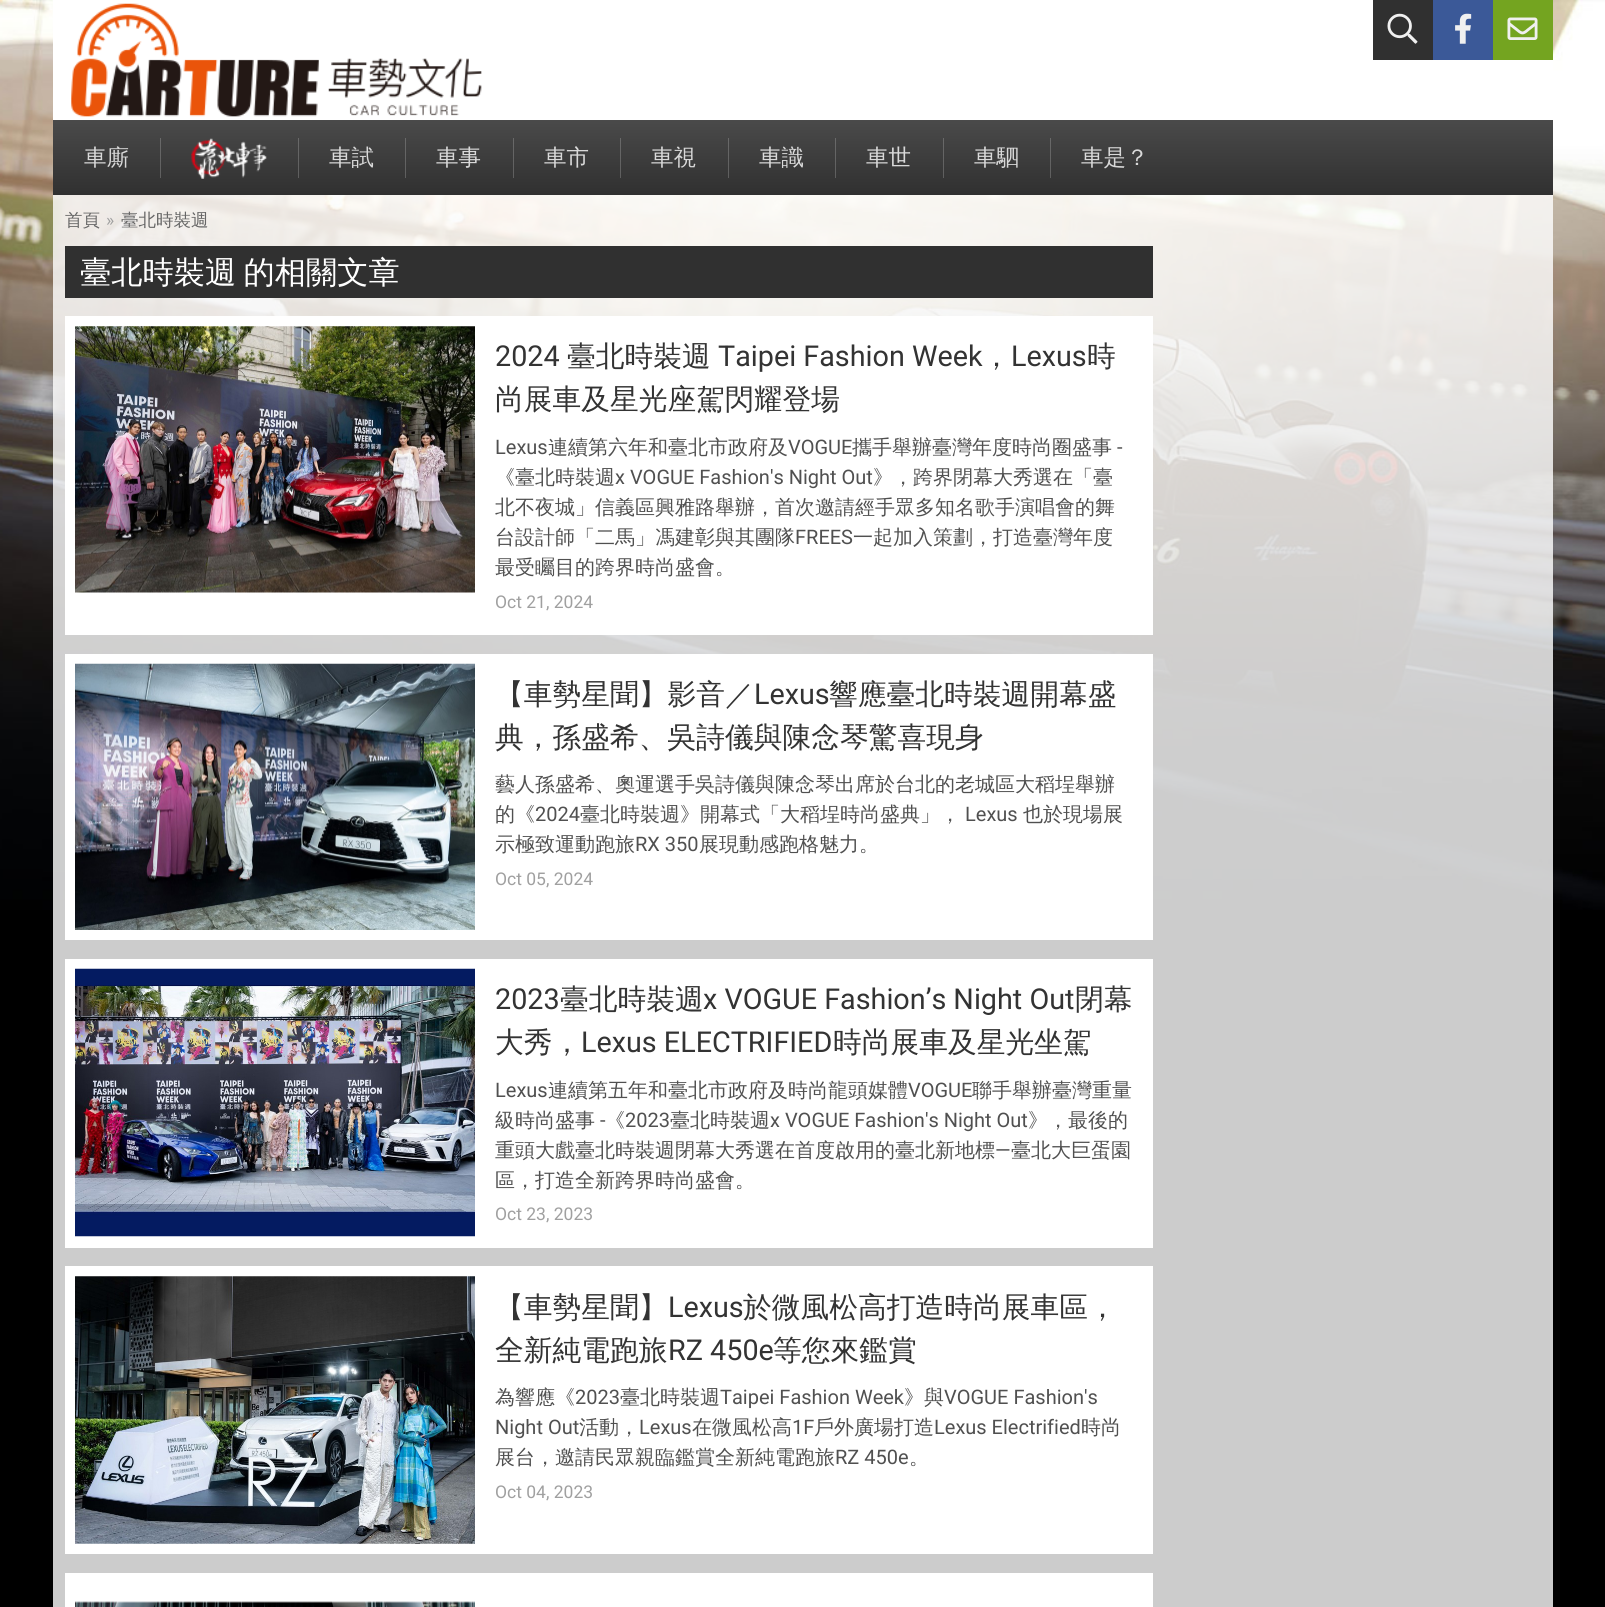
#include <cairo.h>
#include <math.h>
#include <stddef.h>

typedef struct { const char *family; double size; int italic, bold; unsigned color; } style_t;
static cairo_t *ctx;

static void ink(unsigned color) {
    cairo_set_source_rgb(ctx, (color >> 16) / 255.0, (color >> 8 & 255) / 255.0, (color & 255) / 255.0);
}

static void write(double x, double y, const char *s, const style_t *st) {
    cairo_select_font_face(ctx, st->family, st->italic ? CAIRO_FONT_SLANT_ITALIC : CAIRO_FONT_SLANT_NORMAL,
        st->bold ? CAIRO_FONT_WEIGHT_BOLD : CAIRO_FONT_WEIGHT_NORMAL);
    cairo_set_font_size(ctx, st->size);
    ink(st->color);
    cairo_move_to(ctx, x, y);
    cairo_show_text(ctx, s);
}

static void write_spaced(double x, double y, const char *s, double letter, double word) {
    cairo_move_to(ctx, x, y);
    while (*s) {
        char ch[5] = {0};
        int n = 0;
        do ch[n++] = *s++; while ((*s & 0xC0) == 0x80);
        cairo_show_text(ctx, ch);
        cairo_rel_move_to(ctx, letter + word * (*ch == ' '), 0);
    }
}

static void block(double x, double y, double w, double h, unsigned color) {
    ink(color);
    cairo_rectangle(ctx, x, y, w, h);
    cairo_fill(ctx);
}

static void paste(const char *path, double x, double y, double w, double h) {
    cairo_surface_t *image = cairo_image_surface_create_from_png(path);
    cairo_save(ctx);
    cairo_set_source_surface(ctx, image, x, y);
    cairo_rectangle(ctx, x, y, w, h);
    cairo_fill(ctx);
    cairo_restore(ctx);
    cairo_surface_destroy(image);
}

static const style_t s1 = {"WenQuanYi Zen Hei Medium", 22.5, 0, 0, 0xd9d9d9};
static const style_t s2 = {"WenQuanYi Zen Hei Medium", 17.5, 0, 0, 0x666666};
static const style_t s3 = {"Roboto", 17.5, 0, 0, 0xa0a0a0};
static const style_t s4 = {"Roboto", 28.75, 0, 0, 0x333333};
static const style_t s5 = {"WenQuanYi Zen Hei Medium", 28.75, 0, 0, 0x333333};
static const style_t s6 = {"Roboto", 20, 0, 0, 0x505050};
static const style_t s7 = {"WenQuanYi Zen Hei Medium", 20, 0, 0, 0x505050};

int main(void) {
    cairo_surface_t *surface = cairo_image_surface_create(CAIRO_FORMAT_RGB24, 1605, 1607);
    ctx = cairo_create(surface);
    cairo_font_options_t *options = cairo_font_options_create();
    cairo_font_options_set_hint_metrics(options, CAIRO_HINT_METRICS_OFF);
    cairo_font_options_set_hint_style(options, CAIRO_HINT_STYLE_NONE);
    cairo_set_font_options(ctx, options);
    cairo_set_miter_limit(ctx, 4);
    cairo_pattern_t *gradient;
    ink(0x000000);
    cairo_paint(ctx);
    paste("pic1.png", 0, 0, 1605, 910);
    block(53, 0, 1500, 120, 0xffffff);
    paste("pic2.png", 71, 3, 411, 114);
    block(1373, 0, 60, 60, 0x303030);
    paste("pic3.png", 1387, 13, 31, 31);
    block(1433, 0, 60, 60, 0x3b5998);
    paste("pic4.png", 1455, 13, 17, 31);
    block(1493, 0, 60, 60, 0x74a420);
    paste("pic5.png", 1507, 17, 31, 23);
    gradient = cairo_pattern_create_linear(803, 120, 803, 195);
    cairo_pattern_add_color_stop_rgba(gradient, 0, 0.29, 0.29, 0.29, 1);
    cairo_pattern_add_color_stop_rgba(gradient, 1, 0.188, 0.188, 0.188, 1);
    cairo_set_source(ctx, gradient);
    cairo_pattern_destroy(gradient);
    cairo_rectangle(ctx, 53, 120, 1500, 75);
    cairo_fill(ctx);
    write(84, 165, "車廝", &s1);
    cairo_set_source_rgba(ctx, 1, 1, 1, 0.2);
    cairo_rectangle(ctx, 160, 138, 1, 40);
    cairo_fill(ctx);
    paste("pic6.png", 191, 138, 76, 41);
    cairo_rectangle(ctx, 298, 138, 1, 40);
    cairo_fill(ctx);
    write(329, 165, "車試", &s1);
    cairo_set_source_rgba(ctx, 1, 1, 1, 0.2);
    cairo_rectangle(ctx, 405, 138, 1, 40);
    cairo_fill(ctx);
    write(436, 165, "車事", &s1);
    cairo_set_source_rgba(ctx, 1, 1, 1, 0.2);
    cairo_rectangle(ctx, 513, 138, 1, 40);
    cairo_fill(ctx);
    write(544, 165, "車市", &s1);
    cairo_set_source_rgba(ctx, 1, 1, 1, 0.2);
    cairo_rectangle(ctx, 620, 138, 1, 40);
    cairo_fill(ctx);
    write(651, 165, "車視", &s1);
    cairo_set_source_rgba(ctx, 1, 1, 1, 0.2);
    cairo_rectangle(ctx, 728, 138, 1, 40);
    cairo_fill(ctx);
    write(759, 165, "車識", &s1);
    cairo_set_source_rgba(ctx, 1, 1, 1, 0.2);
    cairo_rectangle(ctx, 835, 138, 1, 40);
    cairo_fill(ctx);
    write(866, 165, "車世", &s1);
    cairo_set_source_rgba(ctx, 1, 1, 1, 0.2);
    cairo_rectangle(ctx, 943, 138, 1, 40);
    cairo_fill(ctx);
    write(974, 165, "車駟", &s1);
    cairo_set_source_rgba(ctx, 1, 1, 1, 0.2);
    cairo_rectangle(ctx, 1050, 138, 1, 40);
    cairo_fill(ctx);
    write(1081, 165, "車是？", &s1);
    cairo_set_source_rgba(ctx, 1, 1, 1, 0.8);
    cairo_rectangle(ctx, 53, 195, 1500, 1412);
    cairo_fill(ctx);
    write(65, 226, "首頁", &s2);
    write(106, 226, "»", &s3);
    write(121, 226, "臺北時裝週", &s2);
    block(65, 246, 1088, 52, 0x303030);
    cairo_set_font_size(ctx, 31.25);
    ink(0xffffff);
    write_spaced(80, 283, "臺北時裝週 的相關文章", 0, -2);
    block(65, 316, 1088, 319, 0xffffff);
    paste("pic7.png", 75, 326, 400, 267);
    write(495, 366, "2024", &s4);
    write(567, 366, "臺北時裝週", &s5);
    write(718, 366, "Taipei Fashion Week", &s4);
    write(982, 366, "，", &s5);
    write(1011, 366, "Lexus", &s4);
    write(1087, 366, "時", &s5);
    write(495, 409, "尚展車及星光座駕閃耀登場", &s5);
    write(495, 454, "Lexus", &s6);
    write(548, 454, "連續第六年和臺北市政府及", &s7);
    write(788, 454, "VOGUE", &s6);
    write(852, 454, "攜手舉辦臺灣年度時尚圈盛事", &s7);
    write(1117, 454, "-", &s6);
    write(495, 484, "《臺北時裝週", &s7);
    write(615, 484, "x VOGUE Fashion's Night Out", &s6);
    write(873, 484, "》，跨界閉幕大秀選在「臺", &s7);
    write(495, 514, "北不夜城」信義區興雅路舉辦，首次邀請經手眾多知名歌手演唱會的舞", &s7);
    write(495, 544, "台設計師「二馬」馮建彰與其團隊", &s7);
    write(795, 544, "FREES", &s6);
    write(853, 544, "一起加入策劃，打造臺灣年度", &s7);
    write(495, 574, "最受矚目的跨界時尚盛會。", &s7);
    write(495, 608, "Oct 21, 2024", &s3);
    block(65, 654, 1088, 286, 0xffffff);
    paste("pic8.png", 75, 663, 400, 267);
    write(495, 704, "【車勢星聞】影音／", &s5);
    write(754, 704, "Lexus", &s4);
    write(829, 704, "響應臺北時裝週開幕盛", &s5);
    write(495, 747, "典，孫盛希、吳詩儀與陳念琴驚喜現身", &s5);
    write(495, 791, "藝人孫盛希、奧運選手吳詩儀與陳念琴出席於台北的老城區大稻埕舉辦", &s7);
    write(495, 821, "的《", &s7);
    write(535, 821, "2024", &s6);
    write(580, 821, "臺北時裝週》開幕式「大稻埕時尚盛典」，", &s7);
    write(965, 821, "Lexus", &s6);
    write(1023, 821, "也於現場展", &s7);
    write(495, 851, "示極致運動跑旅", &s7);
    write(635, 851, "RX 350", &s6);
    write(699, 851, "展現動感跑格魅力。", &s7);
    write(495, 885, "Oct 05, 2024", &s3);
    block(65, 959, 1088, 289, 0xffffff);
    paste("pic9.png", 75, 968, 400, 269);
    write(495, 1009, "2023", &s4);
    write(560, 1009, "臺北時裝週", &s5);
    write(703, 1009, "x VOGUE Fashion’s Night Out", &s4);
    write(1075, 1009, "閉幕", &s5);
    write(495, 1052, "大秀，", &s5);
    write(581, 1052, "Lexus ELECTRIFIED", &s4);
    write(833, 1052, "時尚展車及星光坐駕", &s5);
    write(495, 1097, "Lexus", &s6);
    write(548, 1097, "連續第五年和臺北市政府及時尚龍頭媒體", &s7);
    write(908, 1097, "VOGUE", &s6);
    write(972, 1097, "聯手舉辦臺灣重量", &s7);
    write(495, 1127, "級時尚盛事", &s7);
    write(600, 1127, "-", &s6);
    write(605, 1127, "《", &s7);
    write(625, 1127, "2023", &s6);
    write(670, 1127, "臺北時裝週", &s7);
    write(770, 1127, "x VOGUE Fashion's Night Out", &s6);
    write(1028, 1127, "》，最後的", &s7);
    write(495, 1157, "重頭大戲臺北時裝週閉幕大秀選在首度啟用的臺北新地標", &s7);
    write(995, 1157, "—", &s6);
    write(1011, 1157, "臺北大巨蛋園", &s7);
    write(495, 1187, "區，打造全新跨界時尚盛會。", &s7);
    write(495, 1220, "Oct 23, 2023", &s3);
    block(65, 1266, 1088, 288, 0xffffff);
    paste("pic10.png", 75, 1276, 400, 268);
    write(495, 1317, "【車勢星聞】", &s5);
    write(668, 1317, "Lexus", &s4);
    write(743, 1317, "於微風松高打造時尚展車區，", &s5);
    write(495, 1360, "全新純電跑旅", &s5);
    write(668, 1360, "RZ 450e", &s4);
    write(773, 1360, "等您來鑑賞", &s5);
    write(495, 1404, "為響應《", &s7);
    write(575, 1404, "2023", &s6);
    write(620, 1404, "臺北時裝週", &s7);
    write(720, 1404, "Taipei Fashion Week", &s6);
    write(904, 1404, "》與", &s7);
    write(944, 1404, "VOGUE Fashion's", &s6);
    write(495, 1434, "Night Out", &s6);
    write(579, 1434, "活動，", &s7);
    write(639, 1434, "Lexus", &s6);
    write(692, 1434, "在微風松高", &s7);
    write(792, 1434, "1F", &s6);
    write(814, 1434, "戶外廣場打造", &s7);
    write(934, 1434, "Lexus Electrified", &s6);
    write(1081, 1434, "時尚", &s7);
    write(495, 1464, "展台，邀請民眾親臨鑑賞全新純電跑旅", &s7);
    write(835, 1464, "RZ 450e", &s6);
    write(909, 1464, "。", &s7);
    write(495, 1498, "Oct 04, 2023", &s3);
    block(65, 1573, 1088, 34, 0xffffff);
    paste("pic11.png", 75, 1601, 400, 6);
    cairo_surface_write_to_png(surface, "screenshot.png");
    cairo_font_options_destroy(options);
    cairo_destroy(ctx);
    cairo_surface_destroy(surface);
    return 0;
}
